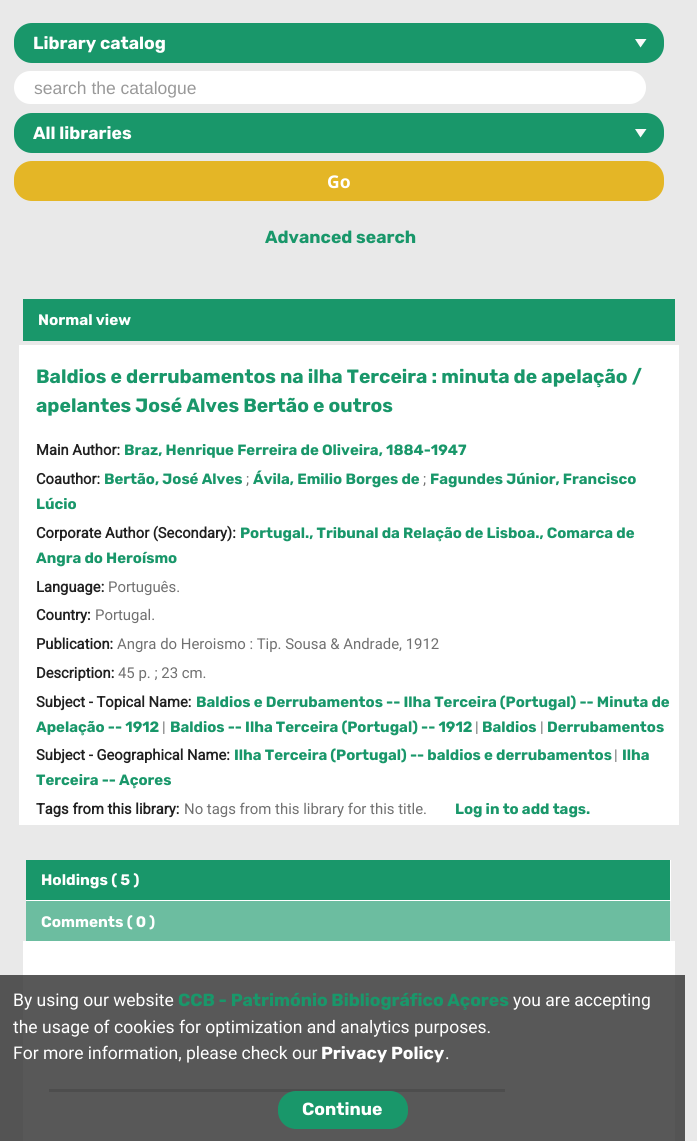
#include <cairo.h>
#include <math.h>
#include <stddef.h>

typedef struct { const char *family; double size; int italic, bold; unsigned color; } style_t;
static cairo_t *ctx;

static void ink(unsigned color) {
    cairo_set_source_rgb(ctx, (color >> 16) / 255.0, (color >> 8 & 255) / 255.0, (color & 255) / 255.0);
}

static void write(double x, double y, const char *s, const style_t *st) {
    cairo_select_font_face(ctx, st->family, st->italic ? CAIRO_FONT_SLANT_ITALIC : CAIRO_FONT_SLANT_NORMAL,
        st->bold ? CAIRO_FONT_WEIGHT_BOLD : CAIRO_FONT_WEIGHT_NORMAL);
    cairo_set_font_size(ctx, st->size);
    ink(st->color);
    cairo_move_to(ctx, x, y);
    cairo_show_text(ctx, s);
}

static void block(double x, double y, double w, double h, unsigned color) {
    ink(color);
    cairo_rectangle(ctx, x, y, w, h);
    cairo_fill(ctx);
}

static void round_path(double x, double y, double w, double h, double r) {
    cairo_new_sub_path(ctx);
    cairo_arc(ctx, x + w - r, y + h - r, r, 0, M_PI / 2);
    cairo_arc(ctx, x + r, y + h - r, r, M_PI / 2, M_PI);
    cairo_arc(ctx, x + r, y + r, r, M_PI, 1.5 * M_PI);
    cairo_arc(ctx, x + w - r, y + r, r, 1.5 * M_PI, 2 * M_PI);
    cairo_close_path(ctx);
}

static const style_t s1 = {"Rubik", 17.5, 0, 1, 0xffffff};
static const style_t s2 = {"Liberation Sans", 17.5, 0, 0, 0x999999};
static const style_t s3 = {"Noto Sans", 17.5, 0, 1, 0xffffff};
static const style_t s4 = {"Rubik", 17.5, 0, 1, 0x19976a};
static const style_t s5 = {"Rubik", 15.25, 0, 1, 0xffffff};
static const style_t s6 = {"Rubik", 19.25, 0, 1, 0x19976a};
static const style_t s7 = {"Roboto", 14.75, 0, 1, 0x202020};
static const style_t s8 = {"Rubik", 14.9, 0, 1, 0x19976a};
static const style_t s9 = {"Roboto", 14.9, 0, 0, 0x707070};
static const style_t s10 = {"Roboto", 17.5, 0, 0, 0xffffff};

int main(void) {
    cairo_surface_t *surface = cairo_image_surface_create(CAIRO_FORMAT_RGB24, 697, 1141);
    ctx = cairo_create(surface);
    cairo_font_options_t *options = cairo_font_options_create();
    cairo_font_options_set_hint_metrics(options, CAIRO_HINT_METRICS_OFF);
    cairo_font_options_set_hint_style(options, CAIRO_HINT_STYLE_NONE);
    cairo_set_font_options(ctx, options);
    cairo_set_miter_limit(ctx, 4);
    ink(0xe9e9e9);
    cairo_paint(ctx);
    ink(0x19976a);
    round_path(14, 23, 650, 40, 18);
    cairo_fill(ctx);
    ink(0xfafafa);
    cairo_new_path(ctx);
    cairo_move_to(ctx, 635, 39);
    cairo_line_to(ctx, 646.5, 39);
    cairo_line_to(ctx, 640.5, 47.5);
    cairo_close_path(ctx);
    cairo_fill(ctx);
    write(33, 49, "Library catalog", &s1);
    round_path(14, 71, 632, 33, 16.5);
    cairo_fill(ctx);
    write(34, 94, "search the catalogue", &s2);
    ink(0x19976a);
    round_path(14, 113, 650, 40, 18);
    cairo_fill(ctx);
    ink(0xfafafa);
    cairo_new_path(ctx);
    cairo_move_to(ctx, 635, 129);
    cairo_line_to(ctx, 646.5, 129);
    cairo_line_to(ctx, 640.5, 137.5);
    cairo_close_path(ctx);
    cairo_fill(ctx);
    write(33, 139, "All libraries", &s1);
    ink(0xe4b626);
    round_path(14, 161, 650, 40, 18);
    cairo_fill(ctx);
    write(327, 188, "Go", &s3);
    write(265, 243, "Advanced search", &s4);
    block(23, 299, 652, 42, 0x19976a);
    write(38, 325, "Normal view", &s5);
    block(19, 345, 660, 480, 0xffffff);
    write(36, 383, "Baldios e derrubamentos na ilha Terceira : minuta de apelação /", &s6);
    write(36, 412, "apelantes José Alves Bertão e outros", &s6);
    write(36, 455, "Main Author:", &s7);
    write(124, 455, "Braz, Henrique Ferreira de Oliveira, 1884-1947", &s8);
    write(36, 484, "Coauthor:", &s7);
    write(104, 484, "Bertão, José Alves", &s8);
    write(246, 484, ";", &s9);
    write(253, 484, "Ávila, Emilio Borges de", &s8);
    write(423, 484, ";", &s9);
    write(430, 484, "Fagundes Júnior, Francisco", &s8);
    write(36, 509, "Lúcio", &s8);
    write(36, 538, "Corporate Author (Secondary):", &s7);
    write(240, 538, "Portugal., Tribunal da Relação de Lisboa., Comarca de", &s8);
    write(36, 563, "Angra do Heroísmo", &s8);
    write(36, 592, "Language:", &s7);
    write(108, 592, "Português.", &s9);
    write(36, 620, "Country:", &s7);
    write(95, 620, "Portugal.", &s9);
    write(36, 649, "Publication:", &s7);
    write(117, 649, "Angra do Heroismo : Tip. Sousa & Andrade, 1912", &s9);
    write(36, 678, "Description:", &s7);
    write(118, 678, "45 p. ; 23 cm.", &s9);
    write(36, 707, "Subject - Topical Name:", &s7);
    write(196, 707, "Baldios e Derrubamentos -- Ilha Terceira (Portugal) -- Minuta de", &s8);
    write(36, 732, "Apelação -- 1912", &s8);
    write(162, 732, "|", &s9);
    write(170, 732, "Baldios -- Ilha Terceira (Portugal) -- 1912", &s8);
    write(475, 732, "|", &s9);
    write(482, 732, "Baldios", &s8);
    write(540, 732, "|", &s9);
    write(547, 732, "Derrubamentos", &s8);
    write(36, 760, "Subject - Geographical Name:", &s7);
    write(234, 760, "Ilha Terceira (Portugal) -- baldios e derrubamentos", &s8);
    write(614, 760, "|", &s9);
    write(622, 760, "Ilha", &s8);
    write(36, 785, "Terceira -- Açores", &s8);
    write(36, 814, "Tags from this library:", &s7);
    write(184, 814, "No tags from this library for this title.", &s9);
    write(455, 814, "Log in to add tags.", &s8);
    block(26, 860, 645, 41, 0xffffff);
    block(26, 860, 644, 40, 0x19976a);
    write(41, 885, "Holdings ( 5 )", &s5);
    block(670, 901, 1, 40, 0xf0f3f3);
    block(26, 901, 644, 40, 0x6cbda0);
    write(41, 927, "Comments ( 0 )", &s5);
    block(23, 941, 652, 200, 0xffffff);
    block(49, 1089, 456, 3, 0xcacaca);
    cairo_set_source_rgba(ctx, 0.184, 0.184, 0.184, 0.8);
    cairo_rectangle(ctx, 0, 975, 685, 166);
    cairo_fill(ctx);
    write(13, 1006, "By using our website", &s10);
    write(178, 1006, "CCB - Património Bibliográfico Açores", &s4);
    write(513, 1006, "you are accepting", &s10);
    write(13, 1033, "the usage of cookies for optimization and analytics purposes.", &s10);
    write(13, 1059, "For more information, please check our", &s10);
    write(321, 1059, "Privacy Policy", &s1);
    write(445, 1059, ".", &s10);
    ink(0x19976a);
    round_path(278, 1091, 130, 38, 18);
    cairo_fill(ctx);
    write(302, 1115, "Continue", &s1);
    cairo_surface_write_to_png(surface, "screenshot.png");
    cairo_font_options_destroy(options);
    cairo_destroy(ctx);
    cairo_surface_destroy(surface);
    return 0;
}
